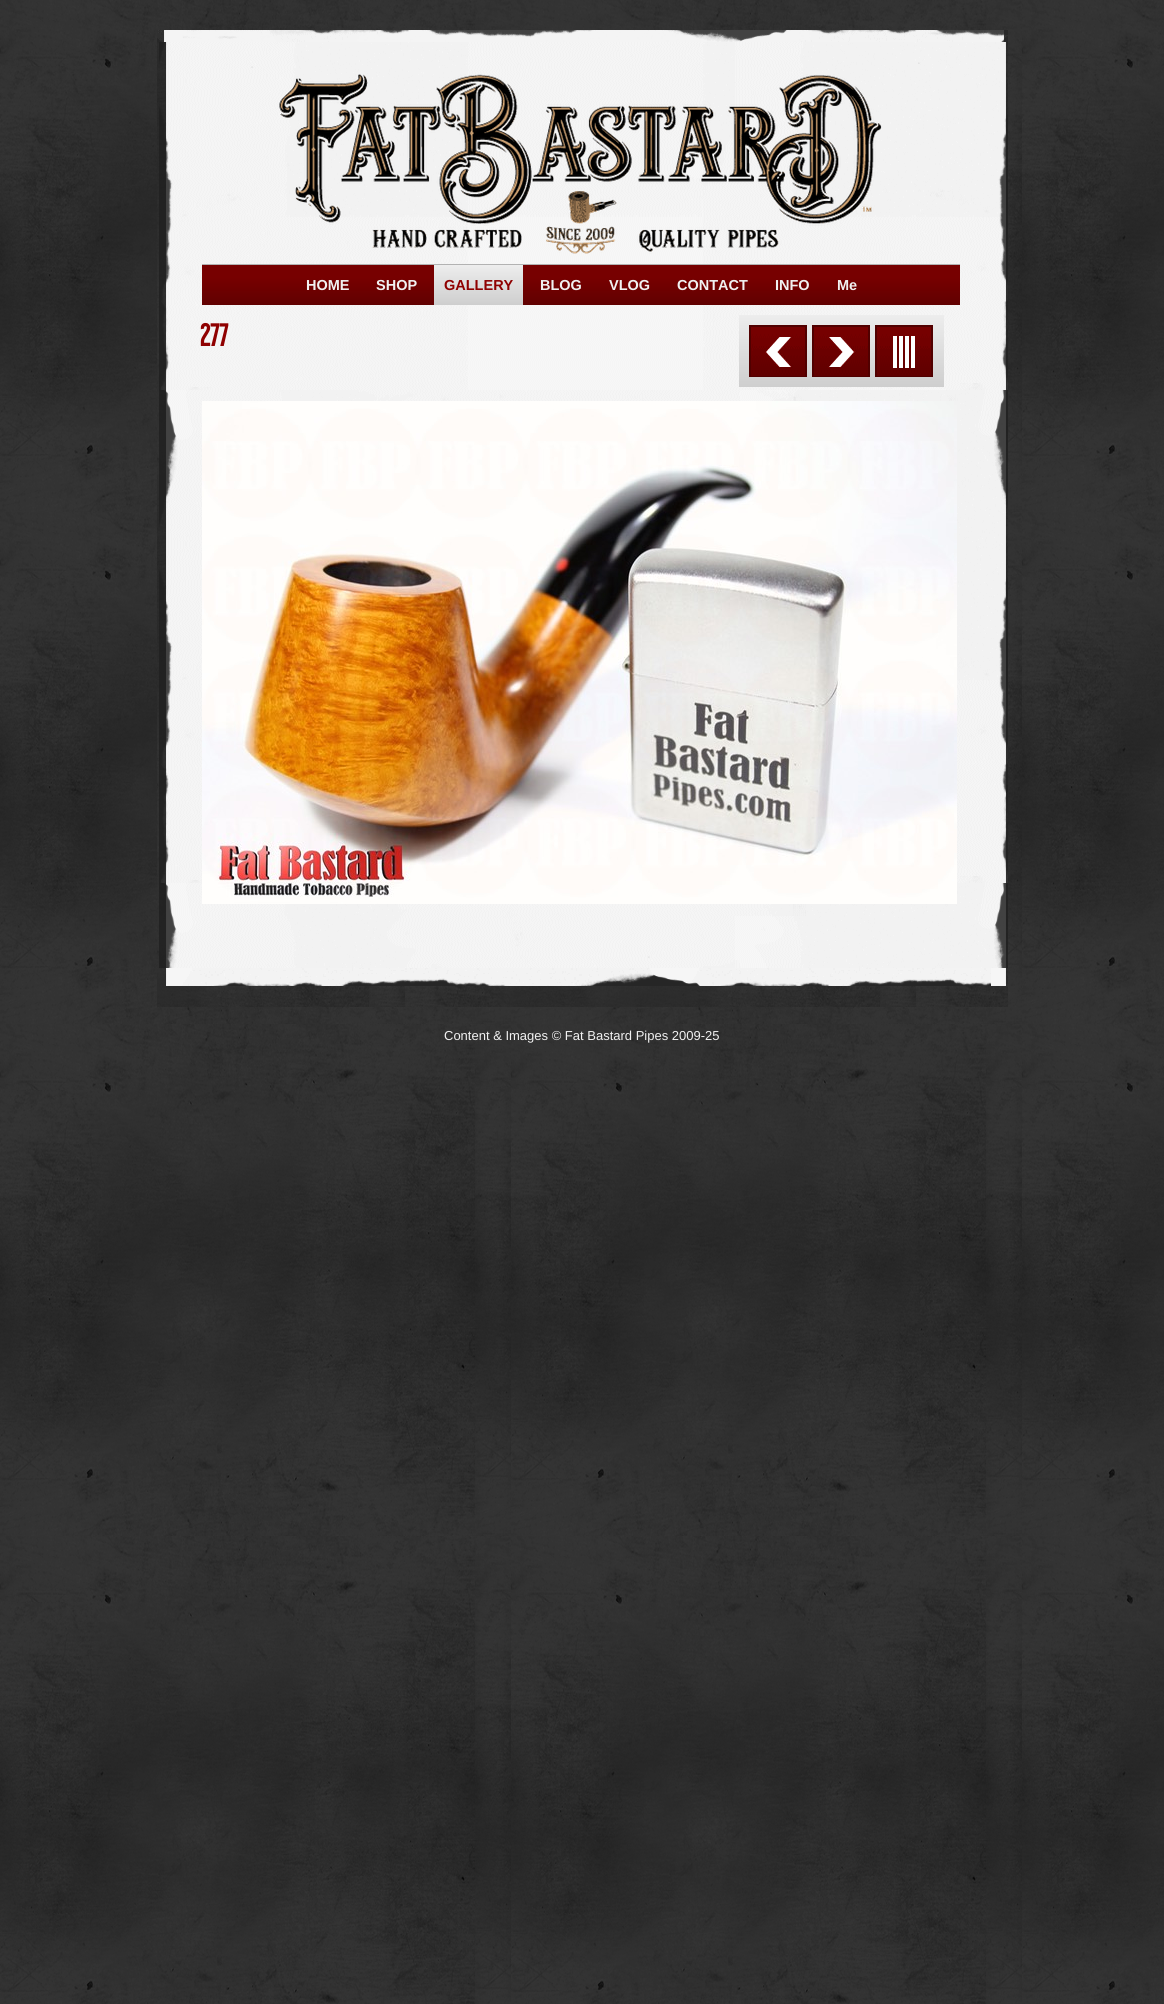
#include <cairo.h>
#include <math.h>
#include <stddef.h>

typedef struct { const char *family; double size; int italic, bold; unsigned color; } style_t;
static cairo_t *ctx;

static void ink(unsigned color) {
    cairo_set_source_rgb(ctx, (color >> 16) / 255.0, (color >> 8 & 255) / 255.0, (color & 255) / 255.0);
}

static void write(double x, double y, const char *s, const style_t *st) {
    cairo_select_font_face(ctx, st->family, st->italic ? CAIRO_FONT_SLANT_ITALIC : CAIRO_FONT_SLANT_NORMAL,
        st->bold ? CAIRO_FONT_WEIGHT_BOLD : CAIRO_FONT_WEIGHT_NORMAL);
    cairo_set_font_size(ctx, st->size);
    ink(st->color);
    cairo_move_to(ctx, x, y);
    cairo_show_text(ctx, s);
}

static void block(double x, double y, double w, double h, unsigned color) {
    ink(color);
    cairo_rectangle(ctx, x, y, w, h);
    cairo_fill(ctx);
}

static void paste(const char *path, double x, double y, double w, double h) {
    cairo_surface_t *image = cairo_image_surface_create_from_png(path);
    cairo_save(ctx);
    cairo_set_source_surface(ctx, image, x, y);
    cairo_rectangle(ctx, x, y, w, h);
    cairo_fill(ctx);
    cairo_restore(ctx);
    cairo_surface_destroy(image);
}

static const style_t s1 = {"Liberation Sans", 14.5, 0, 1, 0xf1f1f1};
static const style_t s2 = {"Liberation Sans", 14.5, 0, 1, 0x8f0000};
static const style_t s3 = {"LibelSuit", 28, 0, 1, 0x8f0000};
static const style_t s4 = {"Liberation Sans", 13, 0, 0, 0xf1f1f1};

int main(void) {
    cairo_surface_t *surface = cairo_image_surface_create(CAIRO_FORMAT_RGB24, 1164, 2004);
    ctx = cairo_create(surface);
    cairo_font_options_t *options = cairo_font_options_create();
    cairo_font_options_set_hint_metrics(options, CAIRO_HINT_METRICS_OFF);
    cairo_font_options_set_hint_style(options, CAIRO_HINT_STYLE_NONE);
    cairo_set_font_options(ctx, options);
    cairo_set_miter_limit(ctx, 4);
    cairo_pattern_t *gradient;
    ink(0xffffff);
    cairo_paint(ctx);
    paste("pic1.png", 0, 0, 1164, 2004);
    paste("pic2.png", 157, 30, 851, 12);
    paste("pic3.png", 157, 42, 851, 263);
    paste("pic4.png", 279, 74, 603, 180);
    gradient = cairo_pattern_create_linear(202, 305, 202, 265);
    cairo_pattern_add_color_stop_rgba(gradient, 0, 0.38, 0.004, 0.004, 1);
    cairo_pattern_add_color_stop_rgba(gradient, 0.69, 0.467, 0, 0, 1);
    cairo_set_source(ctx, gradient);
    cairo_pattern_destroy(gradient);
    cairo_rectangle(ctx, 202, 265, 758, 40);
    cairo_fill(ctx);
    block(202, 264, 758, 1, 0xb2b2b2);
    write(306, 290, "HOME", &s1);
    write(376, 290, "SHOP", &s1);
    gradient = cairo_pattern_create_linear(434, 305, 434, 265);
    cairo_pattern_add_color_stop_rgba(gradient, 0, 0.808, 0.808, 0.808, 1);
    cairo_pattern_add_color_stop_rgba(gradient, 1, 0.929, 0.929, 0.929, 1);
    cairo_set_source(ctx, gradient);
    cairo_pattern_destroy(gradient);
    cairo_rectangle(ctx, 434, 265, 89, 40);
    cairo_fill(ctx);
    write(444, 290, "GALLERY", &s2);
    write(540, 290, "BLOG", &s1);
    write(609, 290, "VLOG", &s1);
    write(677, 290, "CONTACT", &s1);
    write(775, 290, "INFO", &s1);
    write(837, 290, "Me", &s1);
    paste("pic5.png", 157, 305, 851, 663);
    write(200, 346, "277", &s3);
    gradient = cairo_pattern_create_linear(739, 387, 739, 315);
    cairo_pattern_add_color_stop_rgba(gradient, 0, 0.808, 0.808, 0.808, 1);
    cairo_pattern_add_color_stop_rgba(gradient, 1, 0.929, 0.929, 0.929, 1);
    cairo_set_source(ctx, gradient);
    cairo_pattern_destroy(gradient);
    cairo_rectangle(ctx, 739, 315, 205, 72);
    cairo_fill(ctx);
    paste("pic6.png", 750, 326, 56, 1);
    cairo_rectangle(ctx, 749.5, 325.5, 57, 51);
    ink(0x510000);
    cairo_set_line_width(ctx, 1);
    cairo_stroke(ctx);
    paste("pic7.png", 750, 326, 56, 50);
    paste("pic6.png", 813, 326, 56, 1);
    cairo_rectangle(ctx, 812.5, 325.5, 57, 51);
    cairo_stroke(ctx);
    paste("pic8.png", 813, 326, 56, 50);
    paste("pic6.png", 876, 326, 56, 1);
    cairo_rectangle(ctx, 875.5, 325.5, 57, 51);
    cairo_stroke(ctx);
    paste("pic9.png", 876, 326, 56, 50);
    paste("pic10.png", 202, 401, 755, 503);
    paste("pic11.png", 157, 968, 851, 39);
    write(444, 1040, "Content & Images © Fat Bastard Pipes 2009-25", &s4);
    cairo_surface_write_to_png(surface, "screenshot.png");
    cairo_font_options_destroy(options);
    cairo_destroy(ctx);
    cairo_surface_destroy(surface);
    return 0;
}
